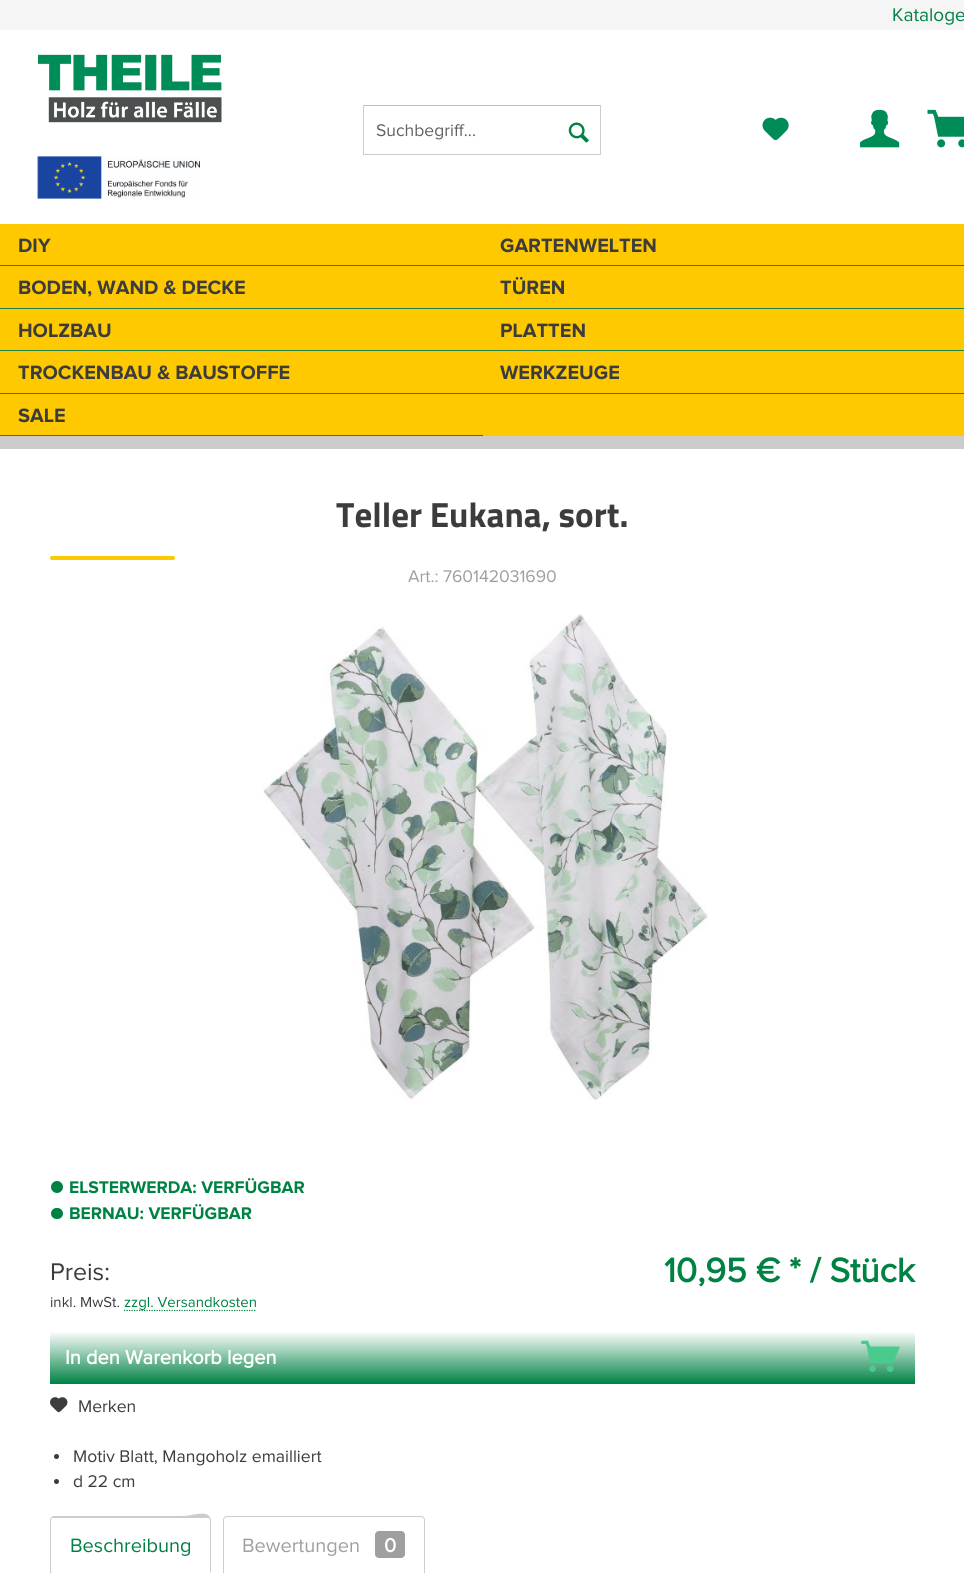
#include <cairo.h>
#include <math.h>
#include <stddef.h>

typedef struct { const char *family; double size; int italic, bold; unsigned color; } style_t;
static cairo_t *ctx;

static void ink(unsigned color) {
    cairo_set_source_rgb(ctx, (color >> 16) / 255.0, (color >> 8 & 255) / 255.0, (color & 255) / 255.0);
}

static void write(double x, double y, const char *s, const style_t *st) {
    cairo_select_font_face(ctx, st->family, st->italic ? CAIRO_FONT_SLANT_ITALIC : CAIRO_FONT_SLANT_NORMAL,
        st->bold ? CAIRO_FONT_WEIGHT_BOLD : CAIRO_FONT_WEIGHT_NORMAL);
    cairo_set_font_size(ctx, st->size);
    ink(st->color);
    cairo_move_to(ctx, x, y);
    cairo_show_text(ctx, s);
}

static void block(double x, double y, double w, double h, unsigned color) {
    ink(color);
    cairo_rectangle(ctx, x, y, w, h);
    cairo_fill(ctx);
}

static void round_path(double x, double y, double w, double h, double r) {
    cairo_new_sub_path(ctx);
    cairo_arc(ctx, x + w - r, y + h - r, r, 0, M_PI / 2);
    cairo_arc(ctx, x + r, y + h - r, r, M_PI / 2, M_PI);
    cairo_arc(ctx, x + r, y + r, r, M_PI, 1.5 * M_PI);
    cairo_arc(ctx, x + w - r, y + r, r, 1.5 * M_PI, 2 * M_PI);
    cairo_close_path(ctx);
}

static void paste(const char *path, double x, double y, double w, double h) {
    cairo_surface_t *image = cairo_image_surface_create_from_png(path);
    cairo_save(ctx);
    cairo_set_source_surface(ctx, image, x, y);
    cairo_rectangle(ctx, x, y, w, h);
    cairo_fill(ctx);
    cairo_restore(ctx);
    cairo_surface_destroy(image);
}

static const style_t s1 = {"Proxima Nova", 19, 0, 0, 0x008244};
static const style_t s2 = {"Proxima Nova", 17.5, 0, 0, 0x626262};
static const style_t s3 = {"Proxima Nova", 20, 0, 1, 0x3c3c3c};
static const style_t s4 = {"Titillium", 35, 0, 1, 0x3c3c3c};
static const style_t s5 = {"Proxima Nova", 17.5, 0, 0, 0x9f9f9f};
static const style_t s6 = {"Proxima Nova", 17.5, 0, 1, 0x008244};
static const style_t s7 = {"Proxima Nova", 25, 0, 0, 0x3c3c3c};
static const style_t s8 = {"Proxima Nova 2", 35, 0, 1, 0x008244};
static const style_t s9 = {"Proxima Nova", 15, 0, 0, 0x3c3c3c};
static const style_t s10 = {"Proxima Nova", 15, 0, 0, 0x008244};
static const style_t s11 = {"Proxima Nova 2", 20, 0, 1, 0xffffff};
static const style_t s12 = {"Proxima Nova", 17.5, 0, 0, 0x3c3c3c};
static const style_t s13 = {"Proxima Nova", 20, 0, 0, 0x008244};
static const style_t s14 = {"Proxima Nova", 20, 0, 0, 0x9f9f9f};

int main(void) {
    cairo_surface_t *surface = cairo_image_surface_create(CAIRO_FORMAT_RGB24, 964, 1573);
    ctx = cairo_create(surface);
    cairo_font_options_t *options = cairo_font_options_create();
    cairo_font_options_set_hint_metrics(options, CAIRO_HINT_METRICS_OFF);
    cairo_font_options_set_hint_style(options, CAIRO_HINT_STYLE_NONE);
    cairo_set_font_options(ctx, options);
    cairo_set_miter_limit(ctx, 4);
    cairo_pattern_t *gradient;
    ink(0xffffff);
    cairo_paint(ctx);
    block(0, 0, 964, 30, 0xf5f5f5);
    write(892, 21, "Kataloge", &s1);
    paste("pic1.png", 38, 54, 184, 69);
    paste("pic2.png", 37, 156, 163, 43);
    block(363, 105, 238, 1, 0xbfbfbf);
    block(600, 105, 1, 50, 0xcccccc);
    block(363, 154, 238, 1, 0xcccccc);
    block(363, 105, 1, 50, 0xcccccc);
    write(376, 136, "Suchbegriff...", &s2);
    paste("pic3.png", 568, 122, 21, 21);
    paste("pic4.png", 762, 117, 27, 24);
    paste("pic5.png", 860, 109, 40, 39);
    paste("pic6.png", 927, 109, 37, 39);
    block(0, 224, 964, 212, 0xfec901);
    block(0, 265, 964, 1, 0x208144);
    write(18, 252, "DIY", &s3);
    write(500, 252, "GARTENWELTEN", &s3);
    block(0, 308, 964, 1, 0x208144);
    write(18, 294, "BODEN, WAND & DECKE", &s3);
    write(500, 294, "TÜREN", &s3);
    block(0, 350, 964, 1, 0x208144);
    write(18, 337, "HOLZBAU", &s3);
    write(500, 337, "PLATTEN", &s3);
    block(0, 393, 964, 1, 0x208144);
    write(18, 379, "TROCKENBAU & BAUSTOFFE", &s3);
    write(500, 379, "WERKZEUGE", &s3);
    block(0, 435, 483, 1, 0x208144);
    write(18, 422, "SALE", &s3);
    block(0, 436, 964, 13, 0xcccccc);
    write(336, 527, "Teller Eukana, sort.", &s4);
    ink(0xfec900);
    round_path(50, 556, 125, 4, 2);
    cairo_fill(ctx);
    write(408, 582, "Art.: 760142031690", &s5);
    paste("pic7.png", 263, 614, 445, 487);
    ink(0x008244);
    cairo_arc(ctx, 57, 1187, 6, 0, 2 * M_PI);
    cairo_fill(ctx);
    write(69, 1193, "ELSTERWERDA: VERFÜGBAR", &s6);
    round_path(51, 1208, 12, 11, 5.5);
    cairo_fill(ctx);
    write(69, 1219, "BERNAU: VERFÜGBAR", &s6);
    write(50, 1280, "Preis:", &s7);
    write(664, 1282, "10,95 € * / Stück", &s8);
    write(50, 1307, "inkl. MwSt.", &s9);
    cairo_new_path(ctx);
    cairo_move_to(ctx, 124, 1310.5);
    cairo_line_to(ctx, 256, 1310.5);
    ink(0x008244);
    cairo_set_line_width(ctx, 1.2);
    cairo_set_dash(ctx, (double[]){1.25, 1.25}, 2, 0);
    cairo_stroke(ctx);
    write(124, 1307, "zzgl. Versandkosten", &s10);
    gradient = cairo_pattern_create_linear(483, 1331, 483, 1384);
    cairo_pattern_add_color_stop_rgba(gradient, 0, 1, 1, 1, 1);
    cairo_pattern_add_color_stop_rgba(gradient, 1, 0, 0.51, 0.267, 1);
    cairo_set_source(ctx, gradient);
    cairo_pattern_destroy(gradient);
    cairo_rectangle(ctx, 50, 1332, 865, 52);
    cairo_fill(ctx);
    write(65, 1364, "In den Warenkorb legen", &s11);
    paste("pic8.png", 861, 1340, 39, 32);
    paste("pic9.png", 50, 1397, 18, 16);
    write(78, 1412, "Merken", &s12);
    cairo_new_path(ctx);
    cairo_arc(ctx, 56.5, 1456.5, 2.5, 0, 2 * M_PI);
    cairo_fill(ctx);
    write(73, 1462, "Motiv Blatt, Mangoholz emailliert", &s12);
    cairo_new_path(ctx);
    cairo_arc(ctx, 56.5, 1481.5, 2.5, 0, 2 * M_PI);
    cairo_fill(ctx);
    write(73, 1487, "d 22 cm", &s12);
    ink(0xcccccc);
    cairo_new_path(ctx);
    cairo_move_to(ctx, 54, 1518);
    cairo_line_to(ctx, 52, 1518);
    cairo_line_to(ctx, 51, 1517);
    cairo_line_to(ctx, 53, 1516);
    cairo_line_to(ctx, 183, 1516);
    cairo_curve_to(ctx, 192, 1516, 205, 1510, 210, 1517);
    cairo_line_to(ctx, 209, 1518);
    cairo_line_to(ctx, 208, 1518);
    cairo_close_path(ctx);
    cairo_fill(ctx);
    cairo_new_path(ctx);
    cairo_move_to(ctx, 210, 1517);
    cairo_line_to(ctx, 211, 1520);
    cairo_line_to(ctx, 211, 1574);
    cairo_line_to(ctx, 210, 1572);
    cairo_line_to(ctx, 210, 1520);
    cairo_line_to(ctx, 209, 1518);
    cairo_close_path(ctx);
    cairo_fill(ctx);
    ink(0xffffff);
    cairo_new_path(ctx);
    cairo_move_to(ctx, 211, 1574);
    cairo_line_to(ctx, 50, 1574);
    cairo_line_to(ctx, 52, 1572);
    cairo_line_to(ctx, 210, 1572);
    cairo_close_path(ctx);
    cairo_fill(ctx);
    ink(0xcccccc);
    cairo_new_path(ctx);
    cairo_move_to(ctx, 50, 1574);
    cairo_line_to(ctx, 52, 1572);
    cairo_line_to(ctx, 51, 1572);
    cairo_line_to(ctx, 51, 1520);
    cairo_line_to(ctx, 52, 1518);
    cairo_line_to(ctx, 51, 1517);
    cairo_line_to(ctx, 50, 1520);
    cairo_close_path(ctx);
    cairo_fill(ctx);
    write(70, 1552, "Beschreibung", &s13);
    cairo_new_path(ctx);
    cairo_move_to(ctx, 227, 1516.5);
    cairo_line_to(ctx, 421, 1516.5);
    cairo_curve_to(ctx, 423, 1516.5, 424.5, 1518, 424.5, 1520);
    cairo_line_to(ctx, 424.5, 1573.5);
    cairo_line_to(ctx, 223.5, 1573.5);
    cairo_line_to(ctx, 223.5, 1520);
    cairo_curve_to(ctx, 223.5, 1518, 225, 1516.5, 227, 1516.5);
    cairo_close_path(ctx);
    ink(0xcccccc);
    cairo_set_line_width(ctx, 1);
    cairo_set_dash(ctx, NULL, 0, 0);
    cairo_stroke(ctx);
    write(242, 1552, "Bewertungen", &s14);
    round_path(375, 1531, 30, 27, 4);
    cairo_fill(ctx);
    write(384, 1552, "0", &s11);
    cairo_surface_write_to_png(surface, "screenshot.png");
    cairo_font_options_destroy(options);
    cairo_destroy(ctx);
    cairo_surface_destroy(surface);
    return 0;
}
